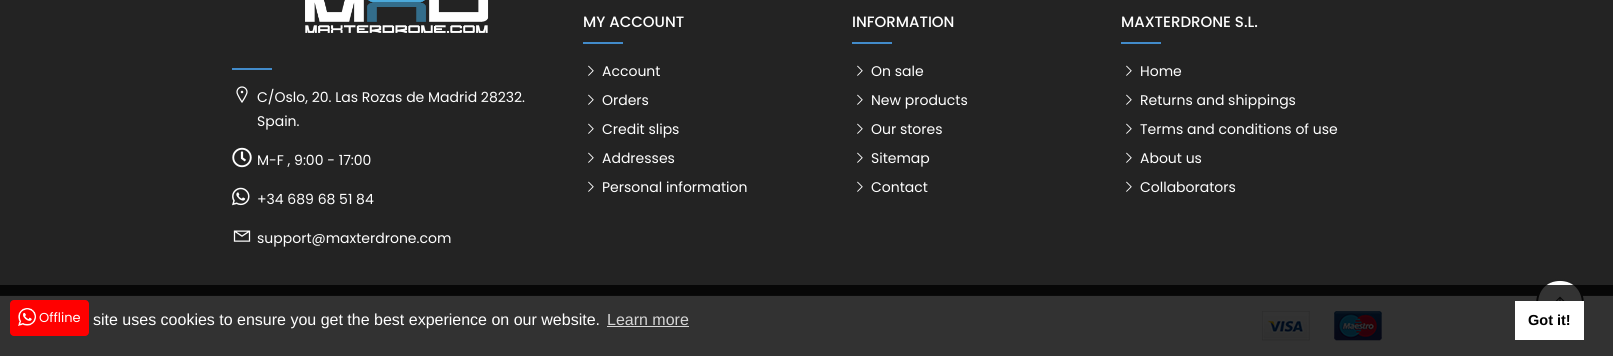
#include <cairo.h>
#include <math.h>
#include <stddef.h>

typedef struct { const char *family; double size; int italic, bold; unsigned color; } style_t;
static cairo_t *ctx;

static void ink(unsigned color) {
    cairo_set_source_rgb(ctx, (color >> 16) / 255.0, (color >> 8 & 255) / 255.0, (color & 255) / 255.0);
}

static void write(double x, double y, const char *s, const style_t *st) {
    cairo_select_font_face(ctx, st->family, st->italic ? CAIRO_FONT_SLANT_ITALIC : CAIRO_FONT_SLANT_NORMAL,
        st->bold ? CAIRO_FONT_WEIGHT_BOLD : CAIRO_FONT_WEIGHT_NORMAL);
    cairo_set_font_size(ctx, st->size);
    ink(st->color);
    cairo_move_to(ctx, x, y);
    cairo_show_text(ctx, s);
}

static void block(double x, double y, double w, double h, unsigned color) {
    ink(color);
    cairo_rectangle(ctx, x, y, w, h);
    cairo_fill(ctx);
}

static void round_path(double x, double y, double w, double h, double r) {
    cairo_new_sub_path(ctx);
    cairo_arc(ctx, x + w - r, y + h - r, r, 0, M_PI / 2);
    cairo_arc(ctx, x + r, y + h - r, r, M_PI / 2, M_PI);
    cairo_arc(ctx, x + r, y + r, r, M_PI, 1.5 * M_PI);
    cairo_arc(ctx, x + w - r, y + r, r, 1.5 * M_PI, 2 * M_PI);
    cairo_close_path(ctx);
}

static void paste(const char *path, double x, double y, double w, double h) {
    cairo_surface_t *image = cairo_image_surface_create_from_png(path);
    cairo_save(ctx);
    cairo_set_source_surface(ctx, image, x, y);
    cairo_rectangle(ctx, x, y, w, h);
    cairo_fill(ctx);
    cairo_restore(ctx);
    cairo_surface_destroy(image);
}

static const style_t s1 = {"Poppins", 14, 0, 0, 0xffffff};
static const style_t s2 = {"Poppins Medium", 15, 0, 0, 0xffffff};
static const style_t s3 = {"Poppins", 13, 0, 0, 0xffffff};
static const style_t s4 = {"Liberation Sans", 16, 0, 0, 0xffffff};
static const style_t s5 = {"Liberation Sans", 16, 0, 0, 0xd6d6d6};
static const style_t s6 = {"Liberation Sans", 14.5, 0, 1, 0x000000};

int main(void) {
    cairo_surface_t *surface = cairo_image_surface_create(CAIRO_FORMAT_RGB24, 1613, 356);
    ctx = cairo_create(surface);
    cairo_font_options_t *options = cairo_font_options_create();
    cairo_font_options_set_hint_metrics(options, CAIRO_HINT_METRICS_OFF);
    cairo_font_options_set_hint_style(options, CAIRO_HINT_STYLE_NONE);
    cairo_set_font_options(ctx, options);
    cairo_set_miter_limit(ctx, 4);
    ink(0x232323);
    cairo_paint(ctx);
    block(0, 295, 1613, 1, 0x393939);
    paste("pic1.png", 305, 0, 184, 33);
    block(232, 68, 40, 2, 0x428bca);
    paste("pic2.png", 236, 86, 12, 17);
    write(257, 102, "C/Oslo, 20. Las Rozas de Madrid 28232.", &s1);
    write(257, 126, "Spain.", &s1);
    paste("pic3.png", 232, 147, 20, 21);
    write(257, 165, "M-F , 9:00 - 17:00", &s1);
    paste("pic4.png", 232, 187, 18, 19);
    write(257, 204, "+34 689 68 51 84", &s1);
    paste("pic5.png", 233, 230, 18, 12);
    write(257, 243, "support@maxterdrone.com", &s1);
    write(583, 27, "MY ACCOUNT", &s2);
    block(583, 42, 40, 2, 0x428bca);
    paste("pic6.png", 588, 65, 6, 11);
    write(602, 76, "Account", &s1);
    paste("pic6.png", 588, 94, 6, 11);
    write(602, 105, "Orders", &s1);
    paste("pic6.png", 588, 123, 6, 11);
    write(602, 134, "Credit slips", &s1);
    paste("pic6.png", 588, 152, 6, 11);
    write(602, 163, "Addresses", &s1);
    paste("pic6.png", 588, 181, 6, 11);
    write(602, 192, "Personal information", &s1);
    write(852, 27, "INFORMATION", &s2);
    block(852, 42, 40, 2, 0x428bca);
    paste("pic6.png", 857, 65, 6, 11);
    write(871, 76, "On sale", &s1);
    paste("pic6.png", 857, 94, 6, 11);
    write(871, 105, "New products", &s1);
    paste("pic6.png", 857, 123, 6, 11);
    write(871, 134, "Our stores", &s1);
    paste("pic6.png", 857, 152, 6, 11);
    write(871, 163, "Sitemap", &s1);
    paste("pic6.png", 857, 181, 6, 11);
    write(871, 192, "Contact", &s1);
    write(1121, 27, "MAXTERDRONE S.L.", &s2);
    block(1121, 42, 40, 2, 0x428bca);
    paste("pic6.png", 1126, 65, 6, 11);
    write(1140, 76, "Home", &s1);
    paste("pic6.png", 1126, 94, 6, 11);
    write(1140, 105, "Returns and shippings", &s1);
    paste("pic6.png", 1126, 123, 6, 11);
    write(1140, 134, "Terms and conditions of use", &s1);
    paste("pic6.png", 1126, 152, 6, 11);
    write(1140, 163, "About us", &s1);
    paste("pic6.png", 1126, 181, 6, 11);
    write(1140, 192, "Collaborators", &s1);
    block(0, 296, 1613, 60, 0xf8f8f8);
    paste("pic7.png", 1262, 311, 120, 30);
    ink(0xffffff);
    cairo_arc(ctx, 1560, 303, 22.5, 0, 2 * M_PI);
    cairo_fill_preserve(ctx);
    ink(0xe7e7e7);
    cairo_set_line_width(ctx, 1);
    cairo_stroke(ctx);
    cairo_new_path(ctx);
    cairo_move_to(ctx, 1560, 280);
    cairo_curve_to(ctx, 1590.5, 280, 1590.5, 326, 1560, 326);
    cairo_curve_to(ctx, 1529.5, 326, 1529.5, 280, 1560, 280);
    ink(0x222222);
    cairo_set_line_width(ctx, 1.9);
    cairo_stroke(ctx);
    paste("pic9.png", 1555, 296, 10, 5);
    cairo_set_source_rgba(ctx, 0, 0, 0, 0.8);
    cairo_rectangle(ctx, 0, 285, 1613, 71);
    cairo_fill(ctx);
    ink(0xff0000);
    round_path(10, 300, 79, 36, 4);
    cairo_fill(ctx);
    paste("pic8.png", 18, 308, 18, 18);
    write(39, 322, "Offline", &s3);
    write(93, 325, "site uses cookies to ensure you get the best experience on our website.", &s4);
    write(607, 325, "Learn more", &s5);
    block(607, 326, 82, 1, 0xd6d6d6);
    block(1515, 301, 69, 39, 0xffffff);
    write(1528, 325, "Got it!", &s6);
    cairo_surface_write_to_png(surface, "screenshot.png");
    cairo_font_options_destroy(options);
    cairo_destroy(ctx);
    cairo_surface_destroy(surface);
    return 0;
}
